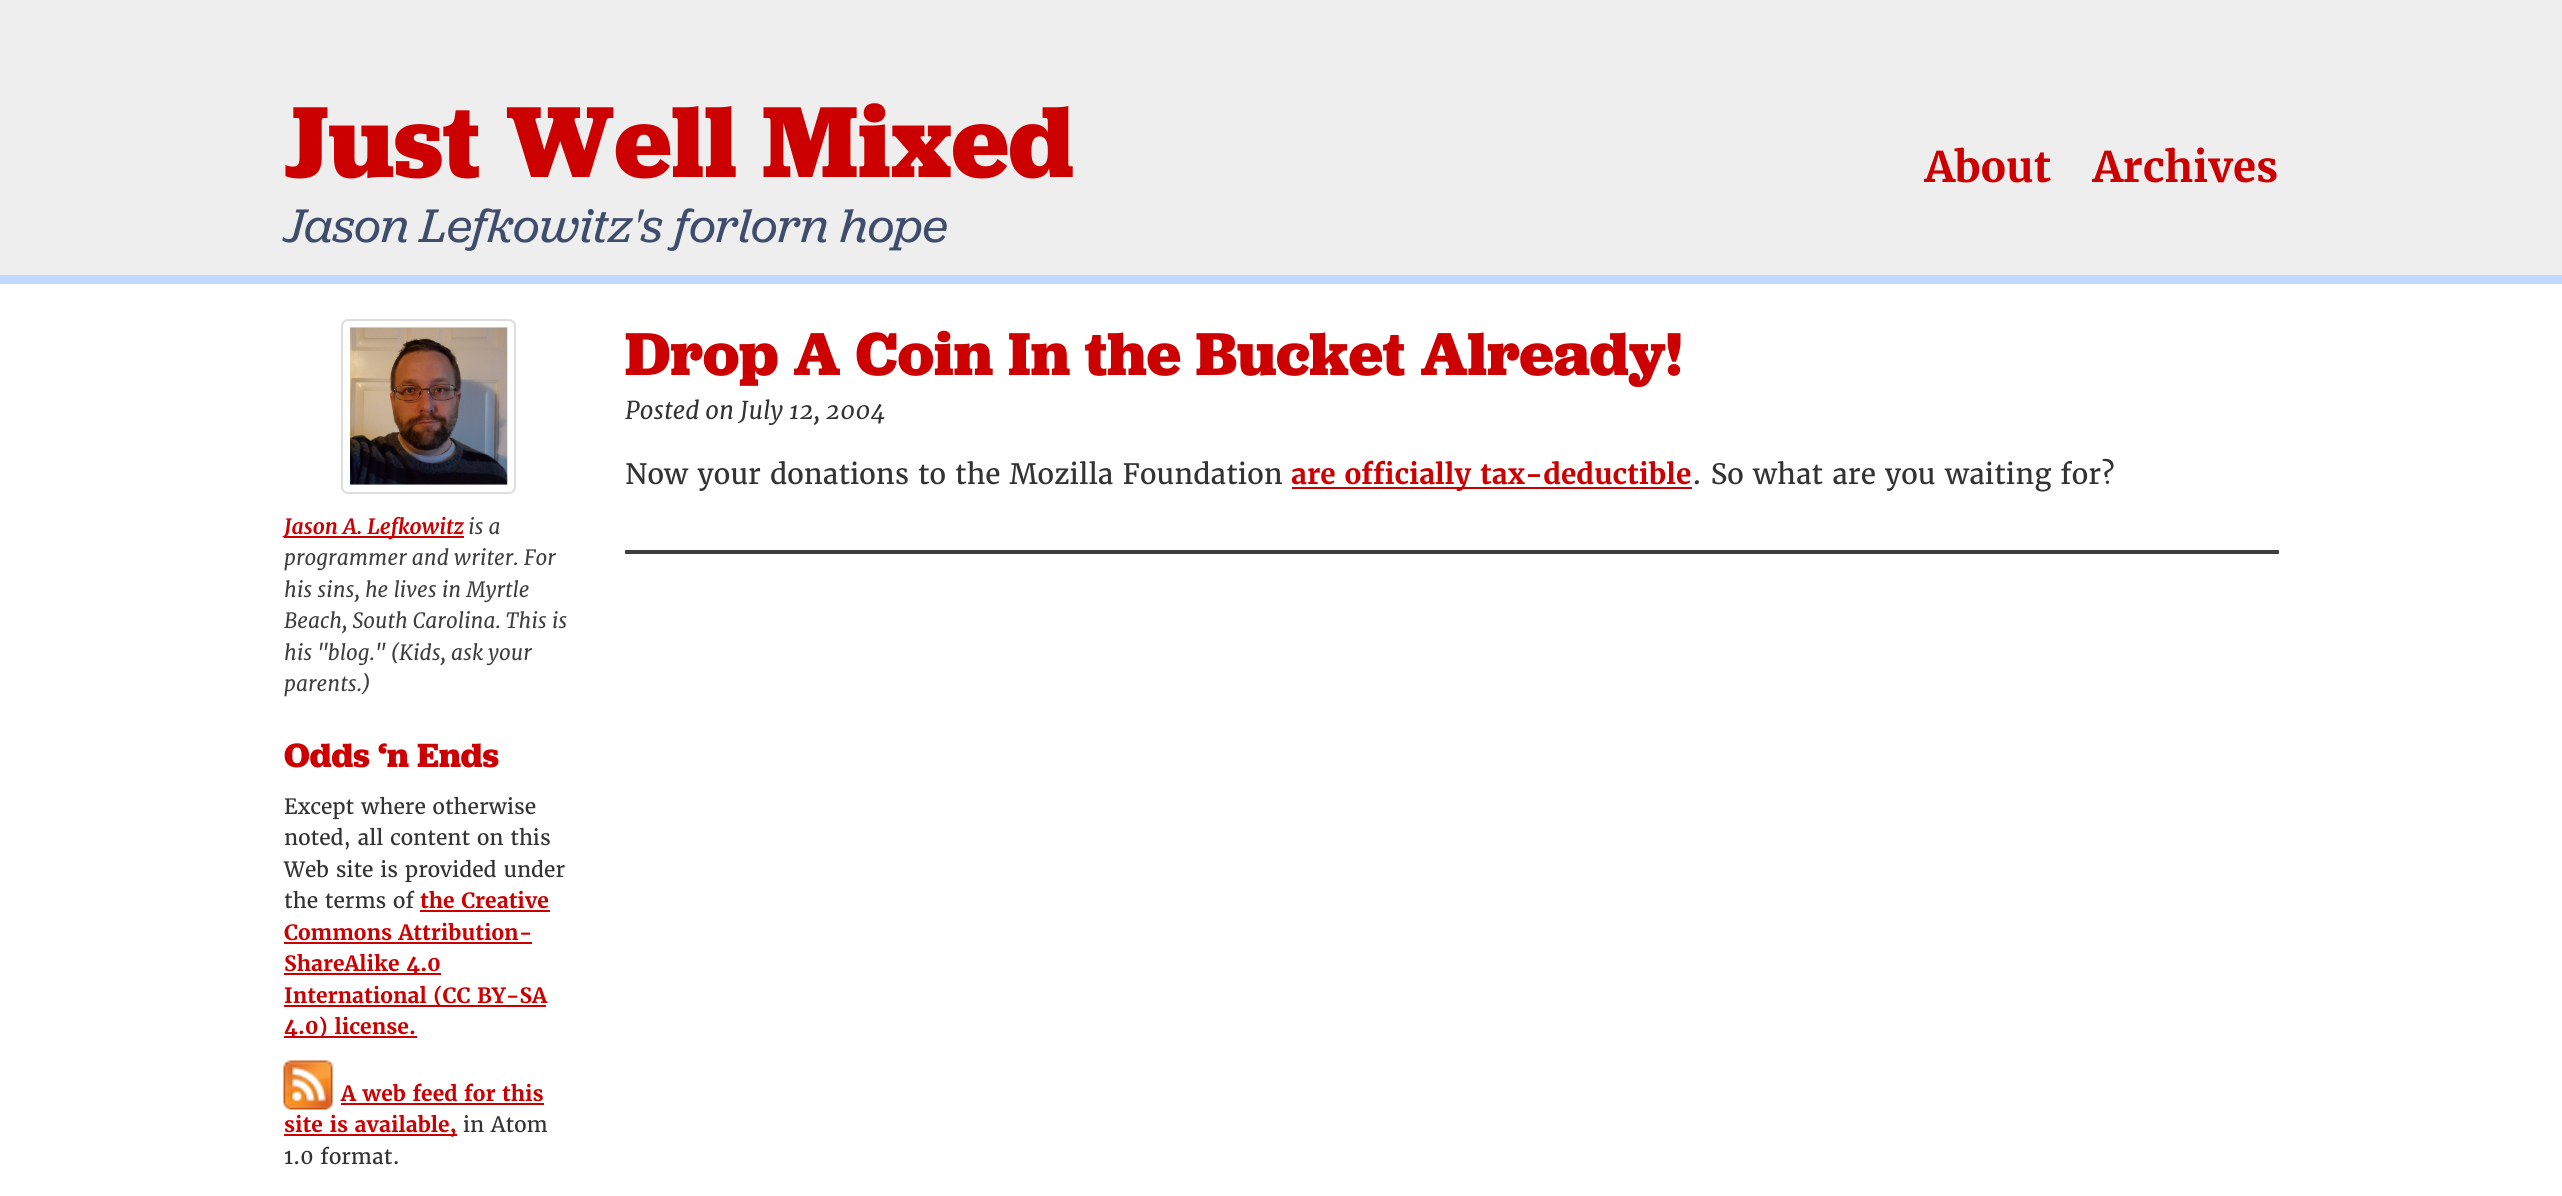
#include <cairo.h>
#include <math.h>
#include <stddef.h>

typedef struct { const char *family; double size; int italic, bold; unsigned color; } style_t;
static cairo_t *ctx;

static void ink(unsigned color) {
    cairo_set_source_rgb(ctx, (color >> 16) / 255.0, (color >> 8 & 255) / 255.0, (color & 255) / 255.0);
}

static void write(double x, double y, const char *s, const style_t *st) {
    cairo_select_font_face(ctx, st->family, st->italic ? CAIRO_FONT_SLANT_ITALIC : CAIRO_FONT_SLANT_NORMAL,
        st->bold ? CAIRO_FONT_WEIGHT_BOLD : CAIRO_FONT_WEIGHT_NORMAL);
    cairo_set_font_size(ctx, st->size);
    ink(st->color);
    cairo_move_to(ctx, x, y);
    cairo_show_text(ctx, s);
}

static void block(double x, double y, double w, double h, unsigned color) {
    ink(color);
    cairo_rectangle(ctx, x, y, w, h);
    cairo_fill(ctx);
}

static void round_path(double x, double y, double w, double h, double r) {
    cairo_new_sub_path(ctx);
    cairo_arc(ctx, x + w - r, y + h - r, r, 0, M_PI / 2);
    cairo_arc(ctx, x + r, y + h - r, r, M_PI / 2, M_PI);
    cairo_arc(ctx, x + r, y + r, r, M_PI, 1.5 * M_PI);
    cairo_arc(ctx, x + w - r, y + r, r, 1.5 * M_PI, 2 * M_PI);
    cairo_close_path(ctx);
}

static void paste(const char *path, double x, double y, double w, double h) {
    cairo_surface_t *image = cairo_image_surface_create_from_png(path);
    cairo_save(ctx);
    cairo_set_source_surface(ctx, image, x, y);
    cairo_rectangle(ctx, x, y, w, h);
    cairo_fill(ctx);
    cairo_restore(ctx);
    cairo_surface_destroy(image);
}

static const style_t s1 = {"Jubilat", 105, 0, 1, 0xcc0000};
static const style_t s2 = {"Jubilat", 49, 1, 0, 0x3f4c6b};
static const style_t s3 = {"Merriweather", 42, 0, 1, 0xcc0000};
static const style_t s4 = {"Jubilat", 63, 0, 1, 0xcc0000};
static const style_t s5 = {"Merriweather", 24.5, 1, 0, 0x333333};
static const style_t s6 = {"Merriweather", 28, 0, 0, 0x333333};
static const style_t s7 = {"Merriweather", 28, 0, 1, 0xcc0000};
static const style_t s8 = {"Merriweather", 21, 1, 1, 0xcc0000};
static const style_t s9 = {"Merriweather", 21, 1, 0, 0x3e3e3e};
static const style_t s10 = {"Jubilat", 35, 0, 1, 0xcc0000};
static const style_t s11 = {"Merriweather", 21, 0, 0, 0x333333};
static const style_t s12 = {"Merriweather", 21, 0, 1, 0xcc0000};

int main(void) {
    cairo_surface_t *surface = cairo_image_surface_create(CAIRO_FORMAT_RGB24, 2562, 1196);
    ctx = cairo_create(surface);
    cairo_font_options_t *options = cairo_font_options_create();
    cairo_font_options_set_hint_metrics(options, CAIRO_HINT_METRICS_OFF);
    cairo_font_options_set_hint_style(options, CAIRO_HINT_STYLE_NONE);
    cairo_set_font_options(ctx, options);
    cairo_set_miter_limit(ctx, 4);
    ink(0xffffff);
    cairo_paint(ctx);
    block(0, 0, 2562, 275, 0xeeeeee);
    block(0, 275, 2562, 9, 0xc3d9ff);
    write(284, 177, "Just Well Mixed", &s1);
    write(284, 242, "Jason Lefkowitz's forlorn hope", &s2);
    write(1925, 182, "About", &s3);
    write(2093, 182, "Archives", &s3);
    write(625, 375, "Drop A Coin In the Bucket Already!", &s4);
    write(625, 419, "Posted on July 12, 2004", &s5);
    write(625, 484, "Now your donations to the Mozilla Foundation", &s6);
    block(1292, 487, 400, 2, 0xcc0000);
    write(1291, 484, "are officially tax-deductible", &s7);
    write(1692, 484, ". So what are you waiting for?", &s6);
    block(625, 550, 1654, 4, 0x3e3e3e);
    round_path(342, 320, 173, 173, 6);
    ink(0xdddddd);
    cairo_stroke(ctx);
    paste("pic1.png", 350, 327, 158, 158);
    block(284, 536, 180, 2, 0xcc0000);
    write(284, 534, "Jason A. Lefkowitz", &s8);
    write(468, 534, "is a", &s9);
    write(284, 565, "programmer and writer. For", &s9);
    write(284, 597, "his sins, he lives in Myrtle", &s9);
    write(284, 628, "Beach, South Carolina. This is", &s9);
    write(284, 660, "his \"blog.\" (Kids, ask your", &s9);
    write(284, 691, "parents.)", &s9);
    write(284, 767, "Odds ‘n Ends", &s10);
    write(284, 814, "Except where otherwise", &s11);
    write(284, 845, "noted, all content on this", &s11);
    write(284, 877, "Web site is provided under", &s11);
    write(284, 908, "the terms of", &s11);
    write(420, 908, "the Creative", &s12);
    block(420, 910, 130, 2, 0xcc0000);
    write(284, 940, "Commons Attribution-", &s12);
    block(284, 942, 248, 2, 0xcc0000);
    block(284, 973, 157, 2, 0xcc0000);
    write(284, 971, "ShareAlike 4.0", &s12);
    block(284, 1005, 262, 2, 0xcc0000);
    write(284, 1003, "International (CC BY-SA", &s12);
    block(284, 1036, 133, 2, 0xcc0000);
    write(284, 1034, "4.0) license.", &s12);
    paste("pic2.png", 283, 1060, 50, 50);
    write(341, 1101, "A web feed for this", &s12);
    block(341, 1103, 203, 2, 0xcc0000);
    block(284, 1134, 173, 2, 0xcc0000);
    write(284, 1132, "site is available,", &s12);
    write(463, 1132, "in Atom", &s11);
    write(284, 1164, "1.0 format.", &s11);
    cairo_surface_write_to_png(surface, "screenshot.png");
    cairo_font_options_destroy(options);
    cairo_destroy(ctx);
    cairo_surface_destroy(surface);
    return 0;
}
